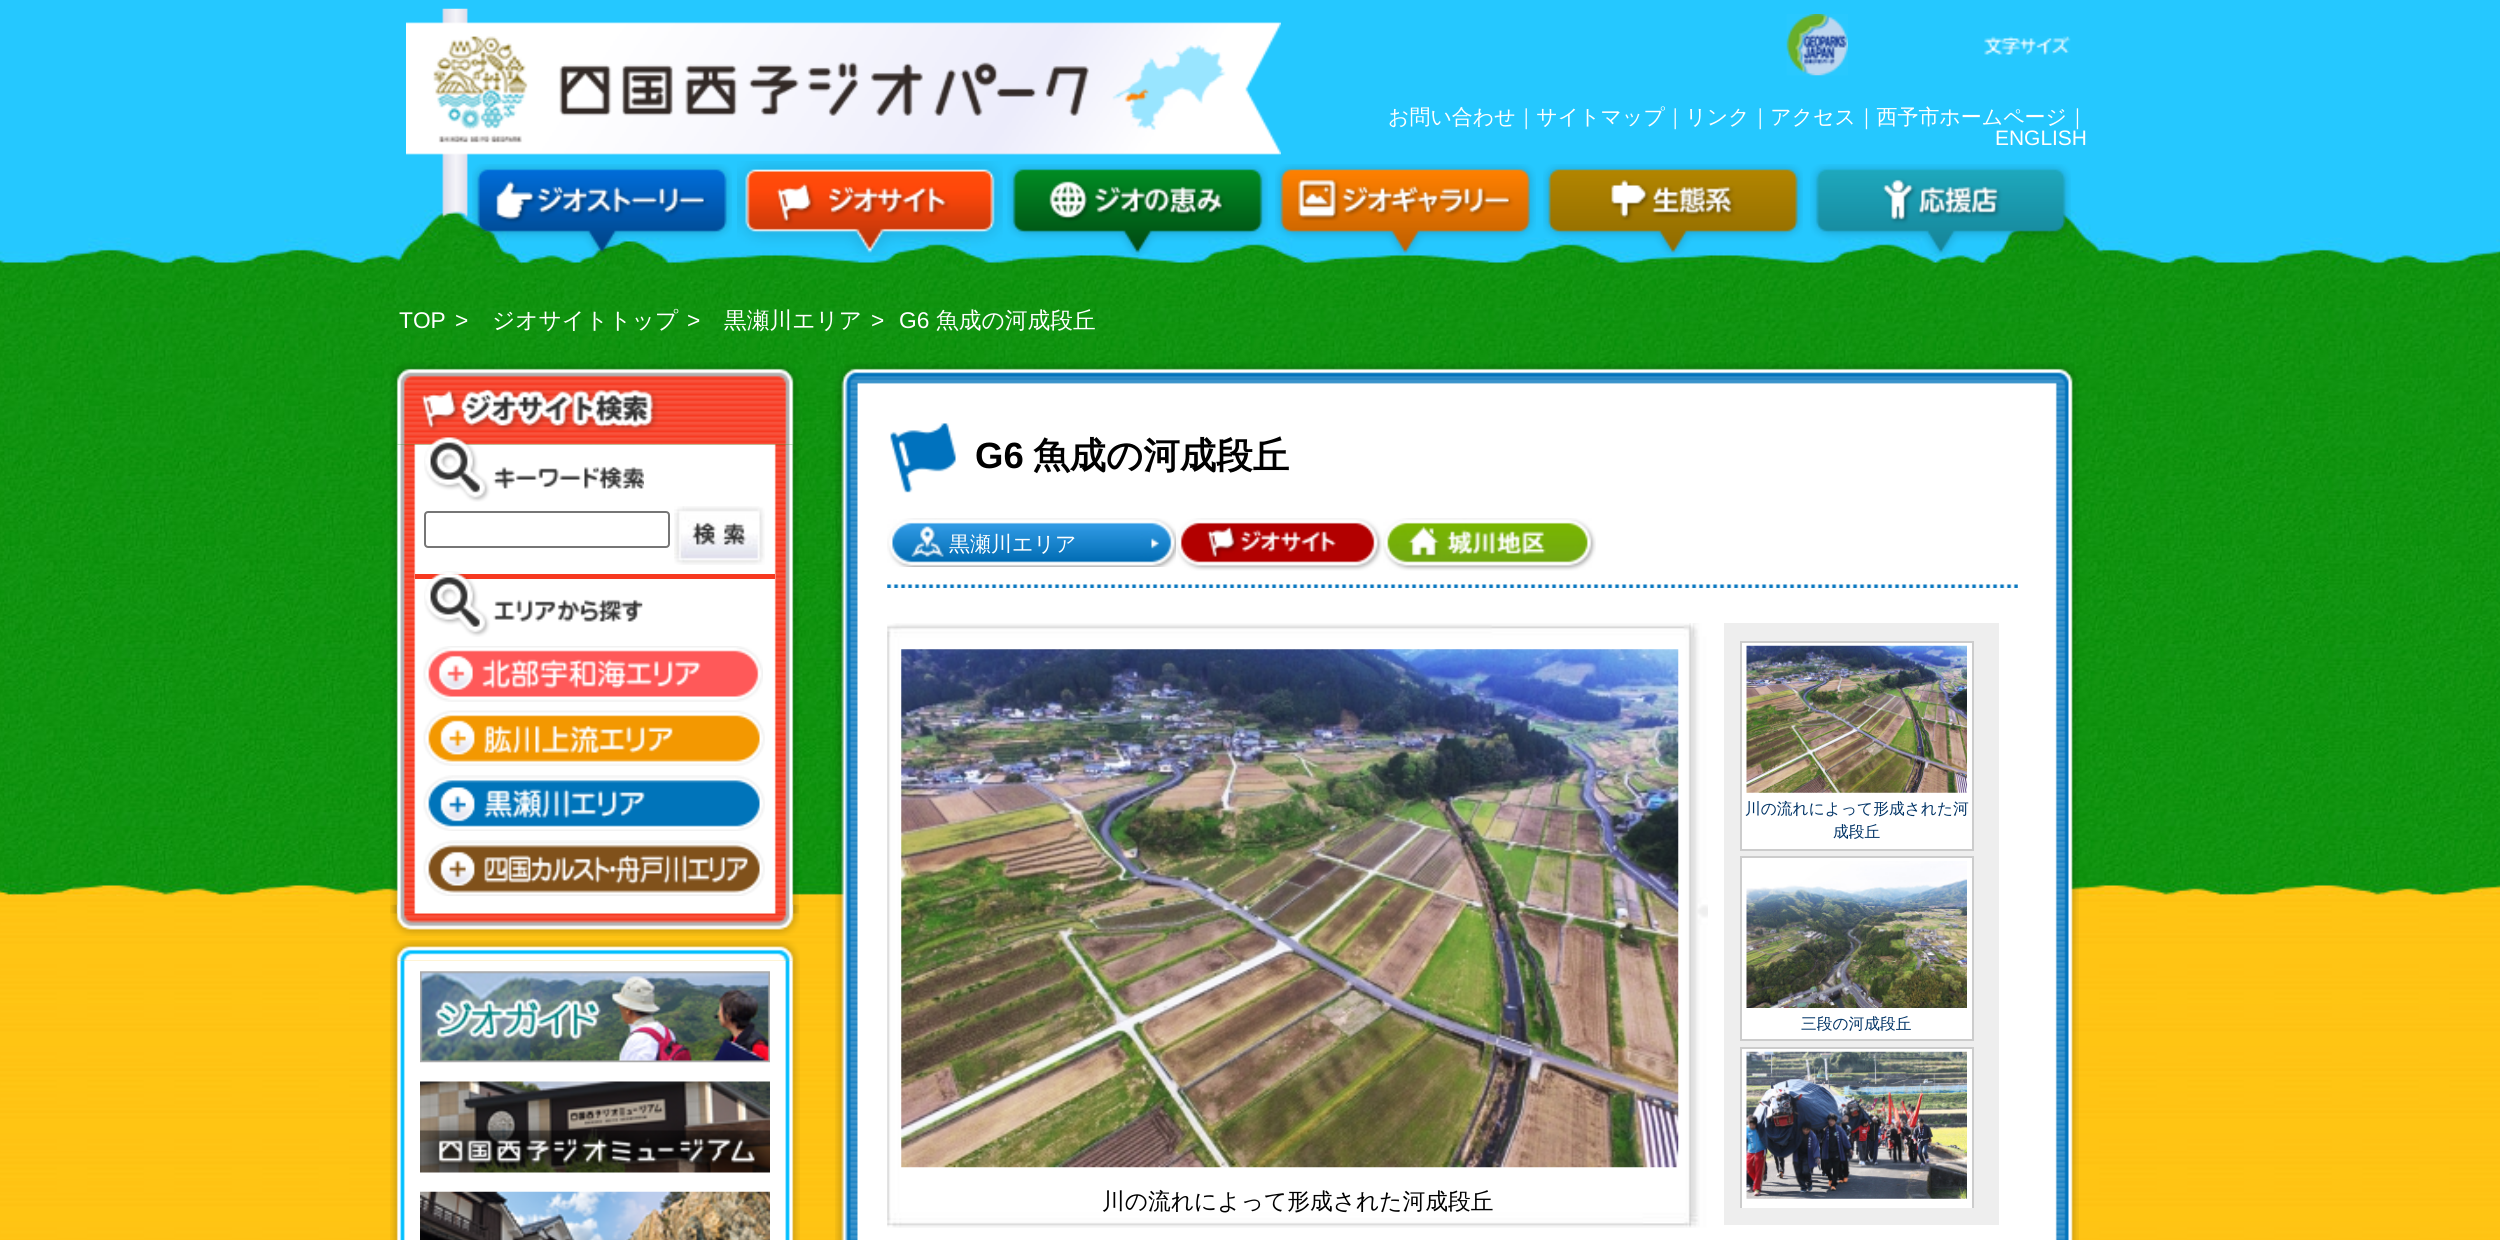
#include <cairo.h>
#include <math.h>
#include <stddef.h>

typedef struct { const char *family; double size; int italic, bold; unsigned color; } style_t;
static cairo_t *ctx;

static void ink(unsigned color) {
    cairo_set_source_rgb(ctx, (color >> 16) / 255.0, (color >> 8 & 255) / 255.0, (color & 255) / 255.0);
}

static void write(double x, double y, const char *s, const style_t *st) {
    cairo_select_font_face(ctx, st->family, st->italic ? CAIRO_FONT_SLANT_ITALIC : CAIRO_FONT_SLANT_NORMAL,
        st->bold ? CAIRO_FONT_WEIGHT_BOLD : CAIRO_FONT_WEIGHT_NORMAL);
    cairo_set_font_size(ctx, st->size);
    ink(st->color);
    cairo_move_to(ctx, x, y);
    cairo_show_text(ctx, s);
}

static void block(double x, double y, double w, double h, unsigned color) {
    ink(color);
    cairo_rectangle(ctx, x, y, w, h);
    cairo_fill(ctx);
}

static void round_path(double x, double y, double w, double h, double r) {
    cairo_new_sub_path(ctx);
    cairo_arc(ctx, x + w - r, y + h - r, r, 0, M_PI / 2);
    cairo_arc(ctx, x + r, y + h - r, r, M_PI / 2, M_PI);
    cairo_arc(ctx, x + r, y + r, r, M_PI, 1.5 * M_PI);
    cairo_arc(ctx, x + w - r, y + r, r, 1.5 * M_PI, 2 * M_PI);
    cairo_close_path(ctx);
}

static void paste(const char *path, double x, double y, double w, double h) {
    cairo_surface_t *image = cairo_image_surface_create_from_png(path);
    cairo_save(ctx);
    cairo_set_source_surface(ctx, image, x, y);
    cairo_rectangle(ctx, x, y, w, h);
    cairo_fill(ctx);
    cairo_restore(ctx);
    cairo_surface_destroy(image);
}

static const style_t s1 = {"WenQuanYi Zen Hei Medium", 20.95, 0, 0, 0xffffff};
static const style_t s2 = {"Liberation Sans", 20.95, 0, 0, 0xffffff};
static const style_t s3 = {"Liberation Sans", 22.75, 0, 0, 0xffffff};
static const style_t s4 = {"WenQuanYi Zen Hei Medium", 22.75, 0, 0, 0xffffff};
static const style_t s5 = {"Liberation Sans", 36.5, 0, 1, 0x000000};
static const style_t s6 = {"WenQuanYi Zen Hei", 36.5, 0, 1, 0x000000};
static const style_t s7 = {"WenQuanYi Zen Hei Medium", 21, 0, 0, 0xffffff};
static const style_t s8 = {"WenQuanYi Zen Hei Medium", 15.75, 0, 0, 0x003366};
static const style_t s9 = {"WenQuanYi Zen Hei Medium", 22.75, 0, 0, 0x000000};

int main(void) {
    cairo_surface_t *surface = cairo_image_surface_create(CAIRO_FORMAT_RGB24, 2500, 1240);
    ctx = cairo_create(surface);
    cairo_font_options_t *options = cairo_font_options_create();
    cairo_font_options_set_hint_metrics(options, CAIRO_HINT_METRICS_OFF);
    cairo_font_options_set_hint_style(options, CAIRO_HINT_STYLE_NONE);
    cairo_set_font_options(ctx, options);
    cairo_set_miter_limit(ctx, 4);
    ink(0xffffff);
    cairo_paint(ctx);
    paste("pic1.png", 0, 896, 2500, 344);
    paste("pic2.png", 0, 0, 2500, 896);
    paste("pic3.png", 406, 8, 875, 210);
    paste("pic4.png", 1786, 14, 62, 62);
    paste("pic5.png", 1984, 36, 87, 19);
    write(1388, 124, "お問い合わせ｜サイトマップ｜リンク｜アクセス｜西予市ホームページ｜", &s1);
    write(1995, 145, "ENGLISH", &s2);
    paste("pic6.png", 472, 164, 260, 91);
    paste("pic7.png", 737, 161, 266, 95);
    paste("pic8.png", 1007, 164, 261, 92);
    paste("pic9.png", 1275, 164, 261, 92);
    paste("pic10.png", 1543, 164, 260, 92);
    paste("pic11.png", 1810, 164, 261, 92);
    write(399, 328, "TOP", &s3);
    write(455, 328, ">", &s3);
    write(492, 328, "ジオサイトトップ", &s4);
    write(687, 328, ">", &s3);
    write(724, 328, "黒瀬川エリア", &s4);
    write(871, 328, ">", &s3);
    write(899, 328, "G6", &s3);
    write(936, 328, "魚成の河成段丘", &s4);
    paste("pic12.png", 390, 904, 410, 32);
    paste("pic13.png", 390, 362, 410, 83);
    paste("pic14.png", 421, 388, 237, 43);
    paste("pic15.png", 390, 444, 409, 470);
    block(415, 574, 360, 5, 0xf73920);
    paste("pic16.png", 424, 436, 220, 66);
    round_path(425, 512, 244, 35, 3);
    ink(0x767676);
    cairo_stroke(ctx);
    paste("pic17.png", 674, 506, 91, 59);
    paste("pic18.png", 424, 571, 219, 66);
    paste("pic19.png", 423, 646, 340, 56);
    paste("pic20.png", 423, 710, 342, 56);
    paste("pic21.png", 423, 775, 342, 56);
    paste("pic22.png", 423, 840, 342, 56);
    paste("pic23.png", 390, 940, 410, 21);
    paste("pic24.png", 390, 960, 410, 280);
    paste("pic25.png", 420, 971, 350, 92);
    paste("pic26.png", 420, 1081, 350, 92);
    paste("pic27.png", 420, 1191, 350, 49);
    paste("pic28.png", 835, 362, 1244, 58);
    paste("pic29.png", 835, 420, 1244, 820);
    paste("pic30.png", 890, 423, 66, 70);
    write(975, 468, "G6", &s5);
    write(1033, 468, "魚成の河成段丘", &s6);
    paste("pic31.png", 887, 584, 1131, 4);
    paste("pic32.png", 887, 518, 289, 49);
    write(949, 551, "黒瀬川エリア", &s7);
    paste("pic33.png", 1176, 518, 207, 53);
    paste("pic34.png", 1383, 518, 213, 53);
    block(1724, 623, 275, 602, 0xeeeeee);
    ink(0xffffff);
    cairo_rectangle(ctx, 1741, 642, 232, 208);
    cairo_fill_preserve(ctx);
    ink(0xcccccc);
    cairo_stroke(ctx);
    paste("pic35.png", 1746, 645, 221, 148);
    write(1745, 814, "川の流れによって形成された河", &s8);
    write(1833, 837, "成段丘", &s8);
    ink(0xffffff);
    cairo_rectangle(ctx, 1741, 857, 232, 183);
    cairo_fill_preserve(ctx);
    ink(0xcccccc);
    cairo_stroke(ctx);
    paste("pic36.png", 1746, 861, 221, 147);
    write(1801, 1029, "三段の河成段丘", &s8);
    block(1742, 1049, 230, 159, 0xffffff);
    cairo_save(ctx);
    cairo_rectangle(ctx, 1724, 641, 275, 567);
    cairo_clip(ctx);
    cairo_rectangle(ctx, 1741, 1048, 232, 185);
    ink(0xcccccc);
    cairo_stroke(ctx);
    cairo_restore(ctx);
    paste("pic37.png", 1746, 1051, 221, 148);
    paste("pic38.png", 887, 623, 821, 605);
    paste("pic39.png", 901, 649, 778, 519);
    write(1102, 1209, "川の流れによって形成された河成段丘", &s9);
    cairo_surface_write_to_png(surface, "screenshot.png");
    cairo_font_options_destroy(options);
    cairo_destroy(ctx);
    cairo_surface_destroy(surface);
    return 0;
}
